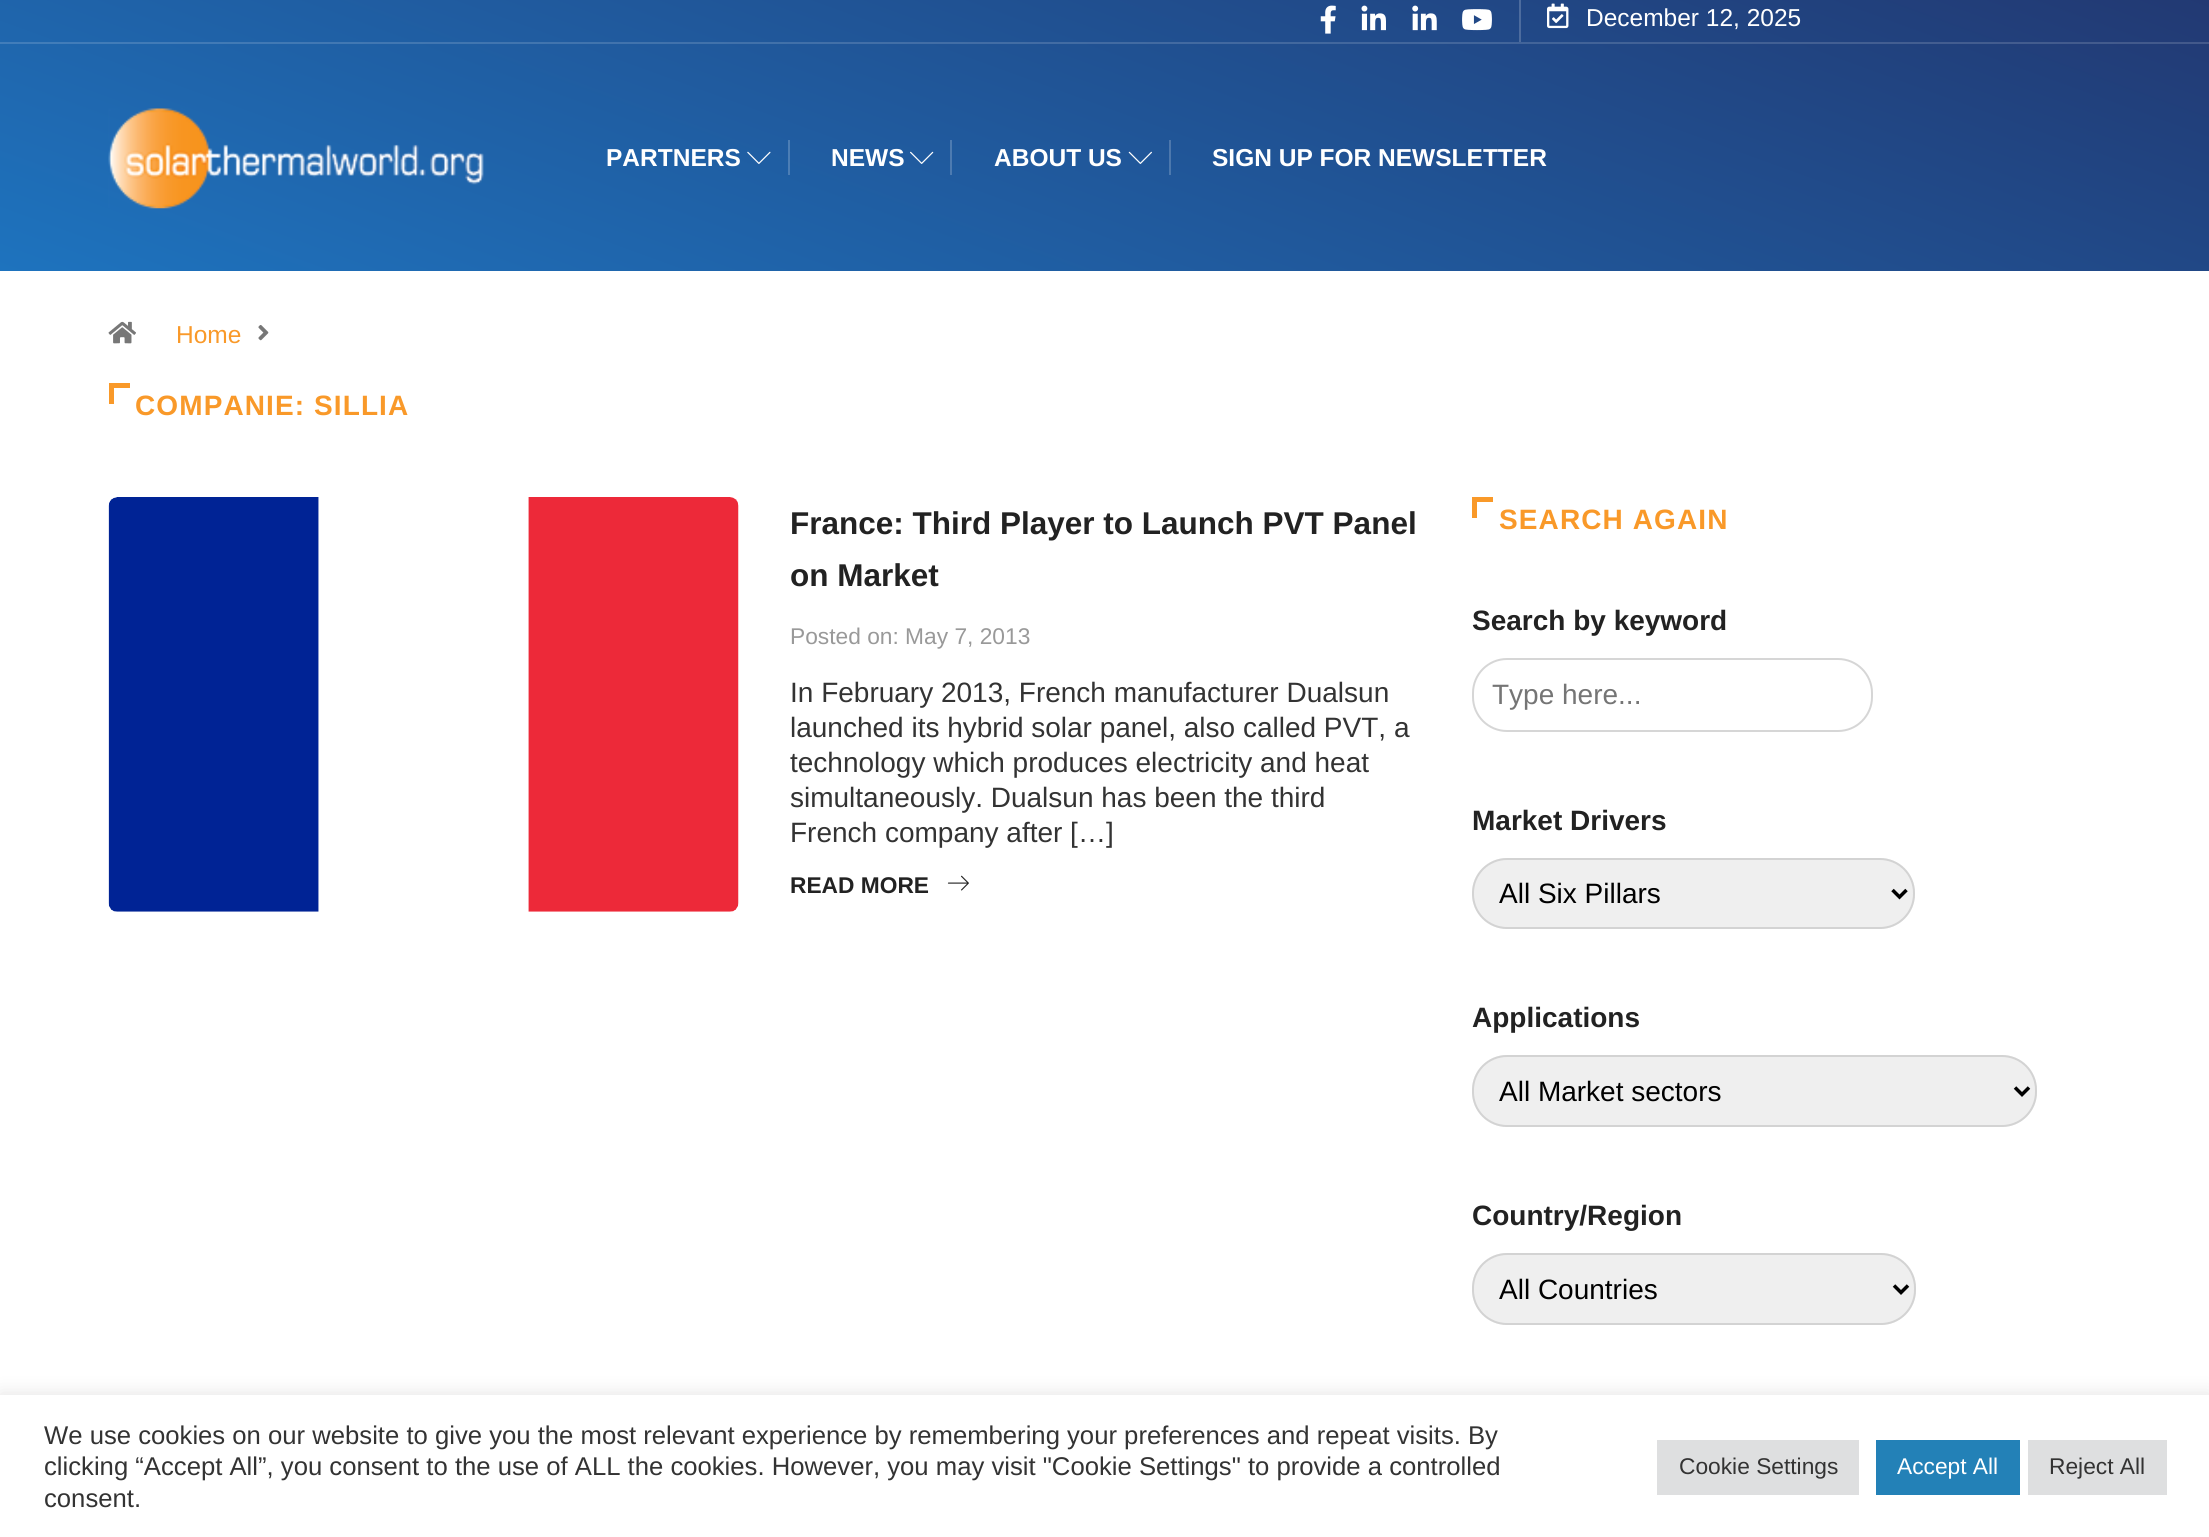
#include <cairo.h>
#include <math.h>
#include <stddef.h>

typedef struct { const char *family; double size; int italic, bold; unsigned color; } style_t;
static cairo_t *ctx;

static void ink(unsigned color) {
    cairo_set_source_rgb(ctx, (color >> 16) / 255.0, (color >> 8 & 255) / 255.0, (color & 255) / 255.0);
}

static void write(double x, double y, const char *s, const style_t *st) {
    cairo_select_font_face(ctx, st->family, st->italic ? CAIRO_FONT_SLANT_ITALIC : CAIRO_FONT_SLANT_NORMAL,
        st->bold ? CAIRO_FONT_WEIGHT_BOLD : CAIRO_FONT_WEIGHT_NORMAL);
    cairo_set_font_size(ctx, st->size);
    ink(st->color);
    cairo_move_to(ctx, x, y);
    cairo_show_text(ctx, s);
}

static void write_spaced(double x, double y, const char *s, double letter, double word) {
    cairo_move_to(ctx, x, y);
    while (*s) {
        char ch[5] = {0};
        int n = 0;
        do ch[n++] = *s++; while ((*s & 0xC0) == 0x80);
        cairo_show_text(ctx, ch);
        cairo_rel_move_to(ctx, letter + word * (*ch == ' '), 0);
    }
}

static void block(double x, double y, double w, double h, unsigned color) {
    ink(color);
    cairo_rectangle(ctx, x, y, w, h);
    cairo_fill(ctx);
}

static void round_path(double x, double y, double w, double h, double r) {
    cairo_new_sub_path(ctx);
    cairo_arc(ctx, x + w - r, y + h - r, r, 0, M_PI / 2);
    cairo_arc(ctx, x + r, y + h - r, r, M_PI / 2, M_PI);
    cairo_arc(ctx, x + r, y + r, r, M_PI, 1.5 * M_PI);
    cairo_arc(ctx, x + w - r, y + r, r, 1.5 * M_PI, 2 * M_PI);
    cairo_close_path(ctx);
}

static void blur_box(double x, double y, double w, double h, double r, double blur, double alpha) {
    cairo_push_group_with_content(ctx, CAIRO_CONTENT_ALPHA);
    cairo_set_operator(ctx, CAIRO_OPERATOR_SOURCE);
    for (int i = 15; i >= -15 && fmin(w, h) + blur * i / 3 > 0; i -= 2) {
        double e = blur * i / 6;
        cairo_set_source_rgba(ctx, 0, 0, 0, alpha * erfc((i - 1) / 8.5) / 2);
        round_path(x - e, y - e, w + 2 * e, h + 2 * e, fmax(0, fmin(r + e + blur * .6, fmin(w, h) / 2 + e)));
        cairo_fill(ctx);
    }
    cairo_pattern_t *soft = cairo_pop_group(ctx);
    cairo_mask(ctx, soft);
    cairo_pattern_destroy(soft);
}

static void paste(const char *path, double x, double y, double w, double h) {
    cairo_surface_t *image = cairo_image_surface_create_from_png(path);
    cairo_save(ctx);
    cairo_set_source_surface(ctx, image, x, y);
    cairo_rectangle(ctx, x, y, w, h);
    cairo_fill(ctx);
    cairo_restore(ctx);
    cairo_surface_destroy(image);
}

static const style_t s1 = {"Liberation Sans", 24.5, 0, 0, 0xffffff};
static const style_t s2 = {"Liberation Sans", 24.5, 0, 1, 0xffffff};
static const style_t s3 = {"Liberation Sans", 24.5, 0, 0, 0xf99929};
static const style_t s4 = {"Liberation Sans", 31.5, 0, 1, 0x222222};
static const style_t s5 = {"Liberation Sans", 22.75, 0, 0, 0x999999};
static const style_t s6 = {"Liberation Sans", 28, 0, 0, 0x333333};
static const style_t s7 = {"Liberation Sans", 22.75, 0, 1, 0x222222};
static const style_t s8 = {"Liberation Sans", 28, 0, 1, 0x222222};
static const style_t s9 = {"Liberation Sans", 28, 0, 0, 0x757575};
static const style_t s10 = {"Liberation Sans", 28, 0, 0, 0x000000};
static const style_t s11 = {"Liberation Sans", 25.67, 0, 0, 0x333333};
static const style_t s12 = {"Liberation Sans", 22.75, 0, 0, 0x333333};
static const style_t s13 = {"Liberation Sans", 22.75, 0, 0, 0xffffff};

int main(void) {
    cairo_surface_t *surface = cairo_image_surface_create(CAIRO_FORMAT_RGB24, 2209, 1537);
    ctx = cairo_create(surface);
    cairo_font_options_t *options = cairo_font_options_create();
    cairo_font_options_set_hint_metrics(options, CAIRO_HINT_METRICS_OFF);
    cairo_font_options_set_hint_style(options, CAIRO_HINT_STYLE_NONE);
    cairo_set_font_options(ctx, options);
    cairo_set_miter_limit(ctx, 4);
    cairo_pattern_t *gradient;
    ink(0xffffff);
    cairo_paint(ctx);
    gradient = cairo_pattern_create_linear(932, 611, 1278, -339);
    cairo_pattern_add_color_stop_rgba(gradient, 0, 0.118, 0.451, 0.745, 1);
    cairo_pattern_add_color_stop_rgba(gradient, 1, 0.133, 0.224, 0.451, 1);
    cairo_set_source(ctx, gradient);
    cairo_pattern_destroy(gradient);
    cairo_rectangle(ctx, 0, 0, 2209, 271);
    cairo_fill(ctx);
    gradient = cairo_pattern_create_linear(932, 611, 1278, -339);
    cairo_pattern_add_color_stop_rgba(gradient, 0, 0.294, 0.561, 0.796, 1);
    cairo_pattern_add_color_stop_rgba(gradient, 1, 0.306, 0.38, 0.561, 1);
    cairo_set_source(ctx, gradient);
    cairo_pattern_destroy(gradient);
    cairo_rectangle(ctx, 1169, 140, 2, 35);
    cairo_fill(ctx);
    gradient = cairo_pattern_create_linear(932, 611, 1278, -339);
    cairo_pattern_add_color_stop_rgba(gradient, 0, 0.251, 0.533, 0.784, 1);
    cairo_pattern_add_color_stop_rgba(gradient, 1, 0.263, 0.341, 0.533, 1);
    cairo_set_source(ctx, gradient);
    cairo_pattern_destroy(gradient);
    cairo_rectangle(ctx, 0, 42, 2209, 2);
    cairo_fill(ctx);
    block(1519, 0, 2, 42, 0x4d6c9e);
    paste("pic1.png", 1320, 5, 16, 29);
    paste("pic2.png", 1361, 5, 25, 26);
    paste("pic3.png", 1412, 5, 25, 26);
    paste("pic4.png", 1462, 9, 30, 22);
    paste("pic5.png", 1547, 3, 22, 26);
    write(1586, 26, "December 12, 2025", &s1);
    paste("pic6.png", 108, 108, 376, 101);
    write(606, 166, "PARTNERS", &s2);
    paste("pic7.png", 747, 151, 24, 13);
    block(788, 140, 2, 35, 0x4c7eb5);
    write(831, 166, "NEWS", &s2);
    paste("pic8.png", 910, 151, 24, 13);
    block(950, 140, 2, 35, 0x4d7bb1);
    write(994, 166, "ABOUT US", &s2);
    paste("pic9.png", 1128, 151, 24, 13);
    write(1212, 166, "SIGN UP FOR NEWSLETTER", &s2);
    paste("pic10.png", 108, 321, 28, 23);
    write(176, 343, "Home", &s3);
    paste("pic11.png", 258, 325, 11, 16);
    block(109, 383, 5, 21, 0xf99929);
    block(109, 383, 21, 5, 0xf99929);
    cairo_select_font_face(ctx, "Liberation Sans", CAIRO_FONT_SLANT_NORMAL, CAIRO_FONT_WEIGHT_BOLD);
    cairo_set_font_size(ctx, 28);
    write_spaced(135, 415, "COMPANIE: SILLIA", 1.1, 0);
    paste("pic12.png", 108, 497, 631, 415);
    write(790, 534, "France: Third Player to Launch PVT Panel", &s4);
    write(790, 586, "on Market", &s4);
    write(790, 644, "Posted on: May 7, 2013", &s5);
    write(790, 702, "In February 2013, French manufacturer Dualsun", &s6);
    write(790, 737, "launched its hybrid solar panel, also called PVT, a", &s6);
    write(790, 772, "technology which produces electricity and heat", &s6);
    write(790, 807, "simultaneously. Dualsun has been the third", &s6);
    write(790, 842, "French company after […]", &s6);
    write(790, 893, "READ MORE", &s7);
    paste("pic13.png", 947, 875, 22, 16);
    block(1472, 497, 5, 21, 0xf99929);
    block(1472, 497, 21, 5, 0xf99929);
    cairo_set_font_size(ctx, 28);
    write_spaced(1499, 529, "SEARCH AGAIN", 1.1, 0);
    write(1472, 630, "Search by keyword", &s8);
    round_path(1473, 659, 399, 72, 34);
    ink(0xd6d6d6);
    cairo_stroke(ctx);
    write(1492, 704, "Type here...", &s9);
    write(1472, 830, "Market Drivers", &s8);
    ink(0xefefef);
    round_path(1472, 858, 443, 71, 35);
    cairo_fill(ctx);
    round_path(1473, 859, 441, 69, 34);
    cairo_set_source_rgba(ctx, 0.8, 0.8, 0.8, 0.8);
    cairo_stroke(ctx);
    cairo_new_path(ctx);
    cairo_move_to(ctx, 1892.5, 890);
    cairo_line_to(ctx, 1899.5, 897);
    cairo_line_to(ctx, 1906.5, 890);
    ink(0x000000);
    cairo_set_line_width(ctx, 3.5);
    cairo_stroke(ctx);
    write(1499, 903, "All Six Pillars", &s10);
    write(1472, 1027, "Applications", &s8);
    ink(0xefefef);
    round_path(1472, 1055, 565, 72, 35);
    cairo_fill(ctx);
    round_path(1473, 1056, 563, 70, 34);
    cairo_set_source_rgba(ctx, 0.8, 0.8, 0.8, 0.8);
    cairo_set_line_width(ctx, 2);
    cairo_stroke(ctx);
    cairo_new_path(ctx);
    cairo_move_to(ctx, 2015, 1087.5);
    cairo_line_to(ctx, 2022, 1094.5);
    cairo_line_to(ctx, 2029, 1087.5);
    ink(0x000000);
    cairo_set_line_width(ctx, 3.5);
    cairo_stroke(ctx);
    write(1499, 1101, "All Market sectors", &s10);
    write(1472, 1225, "Country/Region", &s8);
    ink(0xefefef);
    round_path(1472, 1253, 444, 72, 35);
    cairo_fill(ctx);
    round_path(1473, 1254, 442, 70, 34);
    cairo_set_source_rgba(ctx, 0.8, 0.8, 0.8, 0.8);
    cairo_set_line_width(ctx, 2);
    cairo_stroke(ctx);
    cairo_new_path(ctx);
    cairo_move_to(ctx, 1894, 1285.5);
    cairo_line_to(ctx, 1901, 1292.5);
    cairo_line_to(ctx, 1908, 1285.5);
    ink(0x000000);
    cairo_set_line_width(ctx, 3.5);
    cairo_stroke(ctx);
    write(1499, 1299, "All Countries", &s10);
    ink(0xacabab);
    blur_box(0, 1393, 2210, 144, 0, 9, 0.3);
    block(0, 1395, 2209, 142, 0xffffff);
    write(44, 1444, "We use cookies on our website to give you the most relevant experience by remembering your preferences and repeat visits. By", &s11);
    write(44, 1475, "clicking “Accept All”, you consent to the use of ALL the cookies. However, you may visit \"Cookie Settings\" to provide a controlled", &s11);
    write(44, 1507, "consent.", &s11);
    block(1657, 1440, 202, 55, 0xdedfe0);
    write(1679, 1474, "Cookie Settings", &s12);
    block(1876, 1440, 144, 55, 0x2381b7);
    write(1897, 1474, "Accept All", &s13);
    block(2028, 1440, 139, 55, 0xdedfe0);
    write(2049, 1474, "Reject All", &s12);
    cairo_surface_write_to_png(surface, "screenshot.png");
    cairo_font_options_destroy(options);
    cairo_destroy(ctx);
    cairo_surface_destroy(surface);
    return 0;
}
